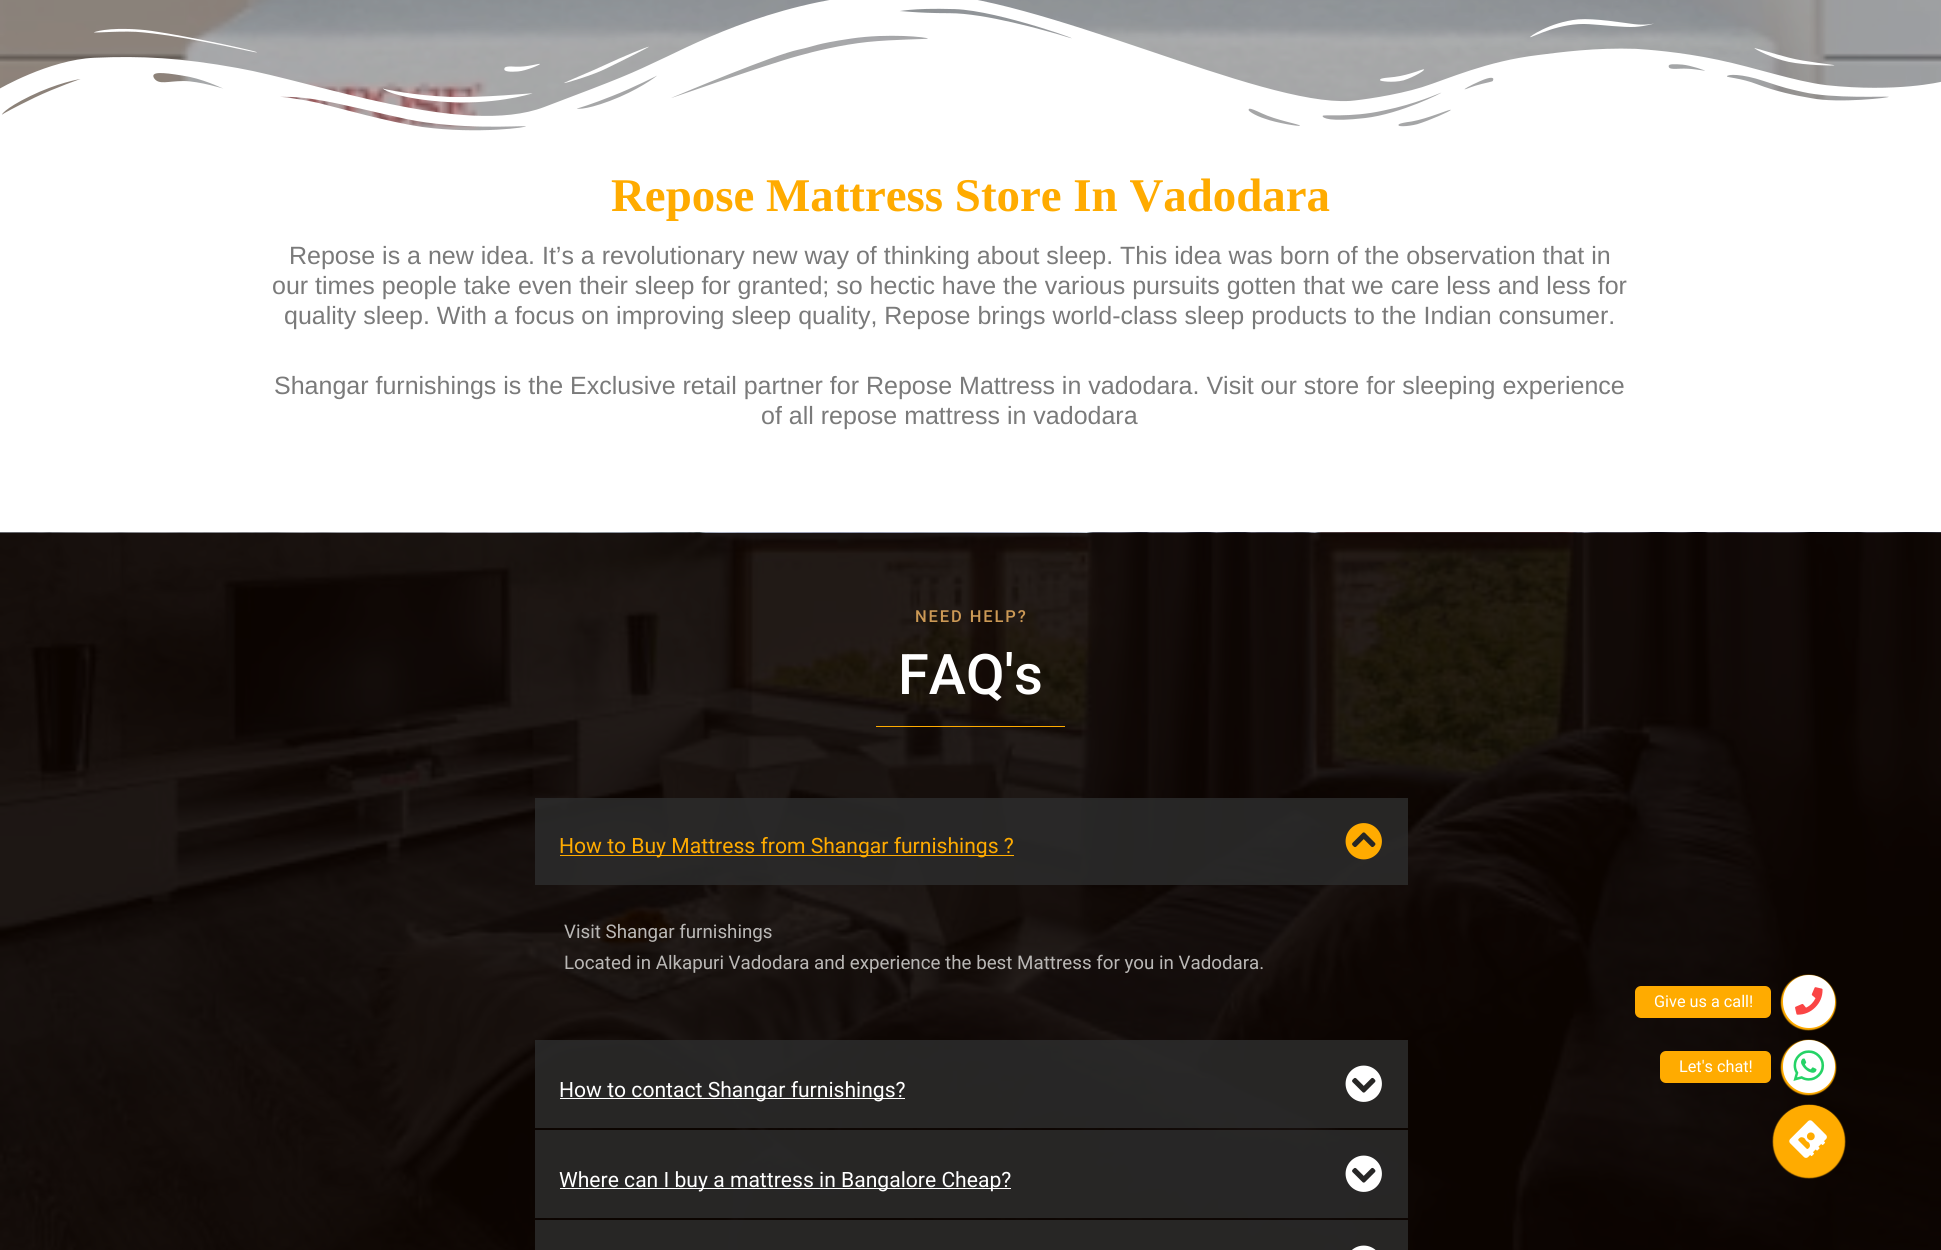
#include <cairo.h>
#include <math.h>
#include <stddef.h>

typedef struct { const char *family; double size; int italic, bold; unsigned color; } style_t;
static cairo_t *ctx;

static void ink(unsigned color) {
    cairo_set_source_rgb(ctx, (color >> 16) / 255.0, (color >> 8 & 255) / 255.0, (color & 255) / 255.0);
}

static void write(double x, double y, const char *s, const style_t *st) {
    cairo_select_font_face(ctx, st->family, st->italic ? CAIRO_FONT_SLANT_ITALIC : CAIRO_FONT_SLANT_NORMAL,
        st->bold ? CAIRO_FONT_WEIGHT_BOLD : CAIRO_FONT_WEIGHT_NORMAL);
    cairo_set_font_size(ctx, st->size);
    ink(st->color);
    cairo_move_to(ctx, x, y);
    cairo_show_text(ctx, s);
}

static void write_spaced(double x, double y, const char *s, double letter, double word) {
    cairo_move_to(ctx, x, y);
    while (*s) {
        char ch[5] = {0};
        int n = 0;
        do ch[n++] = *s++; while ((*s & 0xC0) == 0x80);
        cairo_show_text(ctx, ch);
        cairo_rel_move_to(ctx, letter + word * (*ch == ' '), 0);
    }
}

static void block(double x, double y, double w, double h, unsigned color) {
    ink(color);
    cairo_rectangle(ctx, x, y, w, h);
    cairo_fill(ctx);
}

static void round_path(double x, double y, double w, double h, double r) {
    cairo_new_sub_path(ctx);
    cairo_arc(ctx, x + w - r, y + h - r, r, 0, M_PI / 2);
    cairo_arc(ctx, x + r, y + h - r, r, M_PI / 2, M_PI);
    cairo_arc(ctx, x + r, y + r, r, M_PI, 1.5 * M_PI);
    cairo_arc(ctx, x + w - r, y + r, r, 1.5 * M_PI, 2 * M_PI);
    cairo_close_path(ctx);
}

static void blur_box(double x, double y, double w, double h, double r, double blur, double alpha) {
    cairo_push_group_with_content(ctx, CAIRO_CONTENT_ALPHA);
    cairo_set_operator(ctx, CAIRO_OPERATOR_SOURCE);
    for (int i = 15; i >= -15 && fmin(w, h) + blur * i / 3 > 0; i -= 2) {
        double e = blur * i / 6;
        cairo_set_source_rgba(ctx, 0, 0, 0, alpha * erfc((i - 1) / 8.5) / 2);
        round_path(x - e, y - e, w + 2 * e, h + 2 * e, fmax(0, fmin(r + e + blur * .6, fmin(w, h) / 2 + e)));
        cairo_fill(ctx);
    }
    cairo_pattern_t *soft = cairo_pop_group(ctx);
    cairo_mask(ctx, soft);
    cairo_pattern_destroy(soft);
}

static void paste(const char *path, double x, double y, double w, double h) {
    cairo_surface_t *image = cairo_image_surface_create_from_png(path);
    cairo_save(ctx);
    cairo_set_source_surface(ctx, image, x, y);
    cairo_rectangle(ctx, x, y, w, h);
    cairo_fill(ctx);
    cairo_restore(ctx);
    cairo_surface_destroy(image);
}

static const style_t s1 = {"Liberation Serif", 46.9, 0, 1, 0xffab00};
static const style_t s2 = {"Liberation Sans", 25, 0, 0, 0x7a7a7a};
static const style_t s3 = {"Roboto Medium", 56, 0, 0, 0xffffff};
static const style_t s4 = {"Roboto", 21.1, 0, 0, 0xffab00};
static const style_t s5 = {"Roboto", 18.75, 0, 0, 0xbab8b6};
static const style_t s6 = {"Roboto", 21.1, 0, 0, 0xffffff};
static const style_t s7 = {"Roboto", 16.25, 0, 0, 0xffffff};

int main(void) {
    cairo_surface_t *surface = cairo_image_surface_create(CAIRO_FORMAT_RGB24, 1941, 1250);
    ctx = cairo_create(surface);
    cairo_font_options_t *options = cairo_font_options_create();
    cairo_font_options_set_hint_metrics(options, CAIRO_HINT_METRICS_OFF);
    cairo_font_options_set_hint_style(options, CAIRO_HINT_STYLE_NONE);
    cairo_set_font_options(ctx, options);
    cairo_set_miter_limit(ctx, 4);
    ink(0xffffff);
    cairo_paint(ctx);
    paste("pic1.png", 0, 0, 1941, 131);
    paste("pic2.png", 0, 0, 1941, 155);
    write(611, 211, "Repose Mattress Store In Vadodara", &s1);
    write(289, 264, "Repose is a new idea. It’s a revolutionary new way of thinking about sleep. This idea was born of the observation that in", &s2);
    write(272, 294, "our times people take even their sleep for granted; so hectic have the various pursuits gotten that we care less and less for", &s2);
    write(284, 324, "quality sleep. With a focus on improving sleep quality, Repose brings world-class sleep products to the Indian consumer.", &s2);
    write(274, 394, "Shangar furnishings is the Exclusive retail partner for Repose Mattress in vadodara. Visit our store for sleeping experience", &s2);
    write(761, 424, "of all repose mattress in vadodara", &s2);
    paste("pic3.png", 0, 532, 1941, 718);
    cairo_select_font_face(ctx, "Roboto Medium", CAIRO_FONT_SLANT_NORMAL, CAIRO_FONT_WEIGHT_NORMAL);
    cairo_set_font_size(ctx, 16.5);
    ink(0xcc9955);
    write_spaced(915, 622, "NEED HELP?", 1.9, 0);
    write(898, 694, "FAQ's", &s3);
    block(876, 726, 189, 1, 0xffab00);
    cairo_set_source_rgba(ctx, 0.169, 0.169, 0.169, 0.86);
    cairo_rectangle(ctx, 535, 798, 873, 87);
    cairo_fill(ctx);
    block(560, 855, 454, 1, 0xffab00);
    write(559, 853, "How to Buy Mattress from Shangar furnishings ?", &s4);
    paste("pic4.png", 1345, 823, 37, 37);
    write(564, 938, "Visit Shangar furnishings", &s5);
    write(564, 969, "Located in Alkapuri Vadodara and experience the best Mattress for you in Vadodara.", &s5);
    cairo_set_source_rgba(ctx, 0.169, 0.169, 0.169, 0.86);
    cairo_rectangle(ctx, 535, 1040, 873, 88);
    cairo_fill(ctx);
    block(560, 1098, 345, 1, 0xffffff);
    write(559, 1097, "How to contact Shangar furnishings?", &s6);
    paste("pic5.png", 1345, 1065, 37, 37);
    cairo_set_source_rgba(ctx, 0.169, 0.169, 0.169, 0.86);
    cairo_rectangle(ctx, 535, 1130, 873, 88);
    cairo_fill(ctx);
    block(560, 1188, 451, 1, 0xffffff);
    write(559, 1187, "Where can I buy a mattress in Bangalore Cheap?", &s6);
    paste("pic6.png", 1345, 1155, 37, 37);
    cairo_set_source_rgba(ctx, 0.169, 0.169, 0.169, 0.86);
    cairo_rectangle(ctx, 535, 1220, 873, 30);
    cairo_fill(ctx);
    paste("pic7.png", 1352, 1245, 24, 5);
    ink(0xffab00);
    blur_box(1781, 975, 55, 55, 27.5, 0.5, 1);
    ink(0xffffff);
    round_path(1783, 975, 52, 53, 26);
    cairo_fill(ctx);
    ink(0xffab00);
    round_path(1635, 986, 136, 32, 6);
    cairo_fill(ctx);
    write(1654, 1007, "Give us a call!", &s7);
    paste("pic8.png", 1795, 987, 28, 28);
    ink(0xffab00);
    blur_box(1781, 1040, 55, 55, 27.5, 0.5, 1);
    ink(0xffffff);
    round_path(1783, 1040, 52, 53, 26);
    cairo_fill(ctx);
    ink(0xffab00);
    round_path(1660, 1051, 111, 32, 6);
    cairo_fill(ctx);
    write(1679, 1072, "Let's chat!", &s7);
    paste("pic9.png", 1793, 1050, 32, 31);
    ink(0xffab00);
    blur_box(1773, 1105, 72, 73, 36, 0.5, 1);
    ink(0xffab00);
    cairo_arc(ctx, 1809, 1140, 35, 0, 2 * M_PI);
    cairo_fill(ctx);
    paste("pic10.png", 1789, 1120, 38, 38);
    cairo_surface_write_to_png(surface, "screenshot.png");
    cairo_font_options_destroy(options);
    cairo_destroy(ctx);
    cairo_surface_destroy(surface);
    return 0;
}
